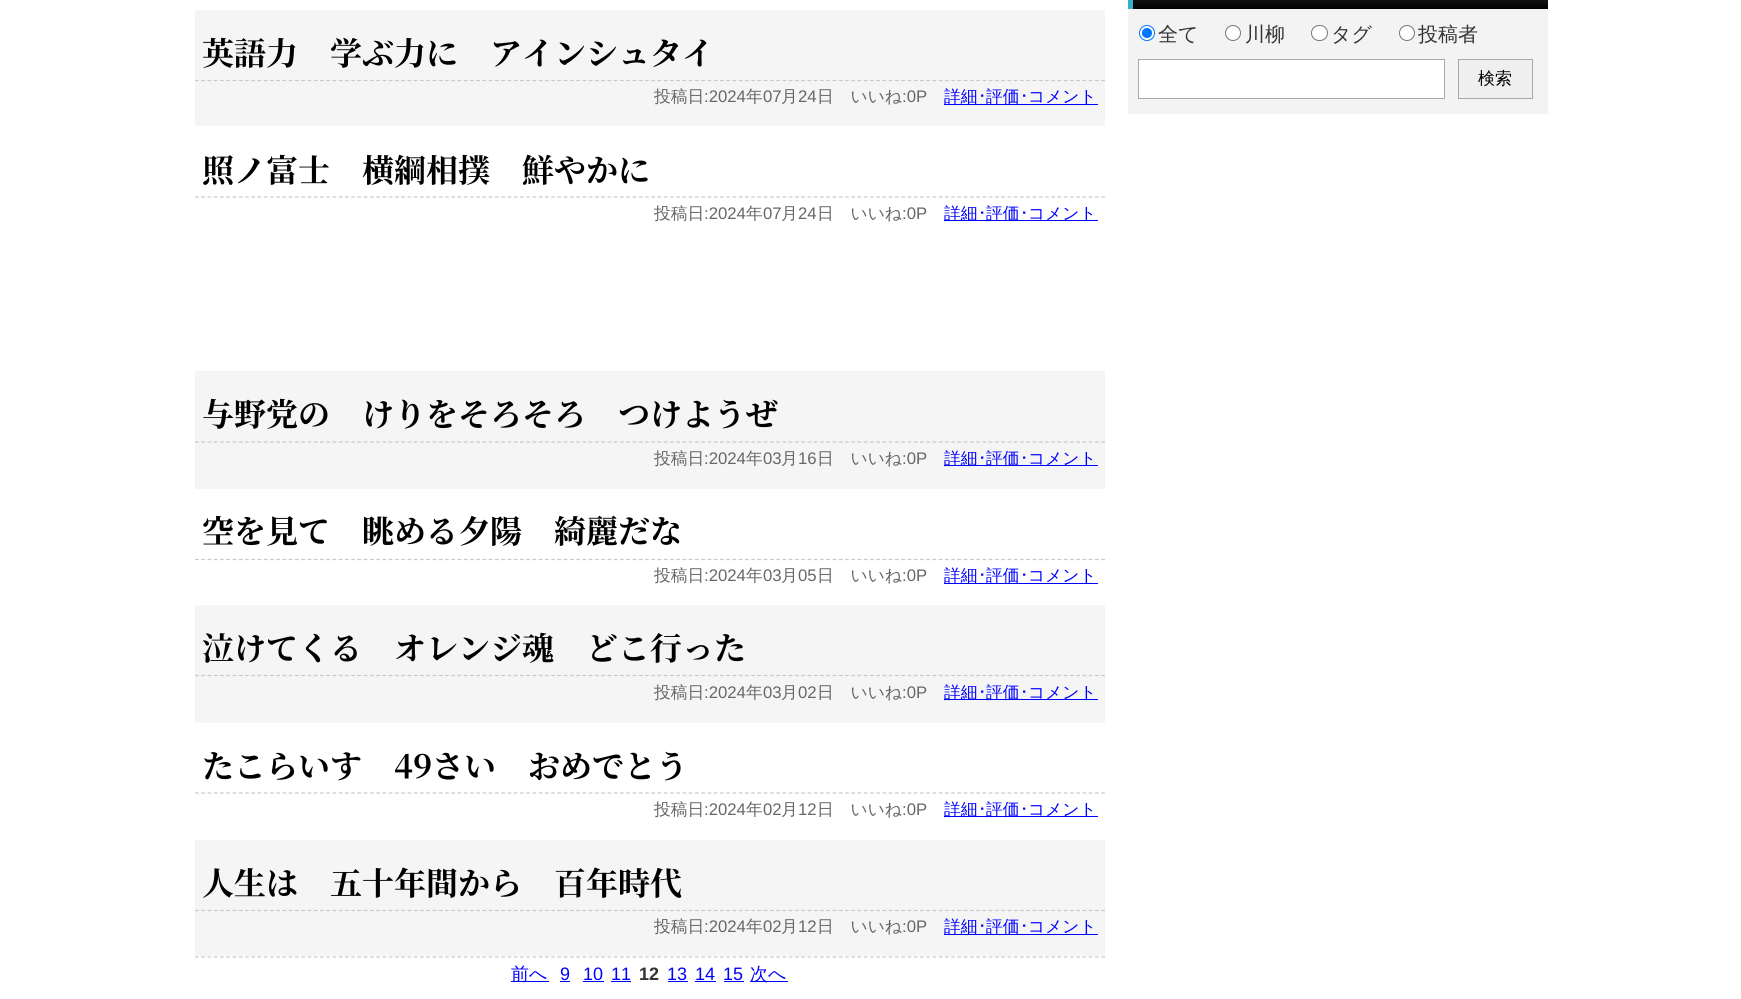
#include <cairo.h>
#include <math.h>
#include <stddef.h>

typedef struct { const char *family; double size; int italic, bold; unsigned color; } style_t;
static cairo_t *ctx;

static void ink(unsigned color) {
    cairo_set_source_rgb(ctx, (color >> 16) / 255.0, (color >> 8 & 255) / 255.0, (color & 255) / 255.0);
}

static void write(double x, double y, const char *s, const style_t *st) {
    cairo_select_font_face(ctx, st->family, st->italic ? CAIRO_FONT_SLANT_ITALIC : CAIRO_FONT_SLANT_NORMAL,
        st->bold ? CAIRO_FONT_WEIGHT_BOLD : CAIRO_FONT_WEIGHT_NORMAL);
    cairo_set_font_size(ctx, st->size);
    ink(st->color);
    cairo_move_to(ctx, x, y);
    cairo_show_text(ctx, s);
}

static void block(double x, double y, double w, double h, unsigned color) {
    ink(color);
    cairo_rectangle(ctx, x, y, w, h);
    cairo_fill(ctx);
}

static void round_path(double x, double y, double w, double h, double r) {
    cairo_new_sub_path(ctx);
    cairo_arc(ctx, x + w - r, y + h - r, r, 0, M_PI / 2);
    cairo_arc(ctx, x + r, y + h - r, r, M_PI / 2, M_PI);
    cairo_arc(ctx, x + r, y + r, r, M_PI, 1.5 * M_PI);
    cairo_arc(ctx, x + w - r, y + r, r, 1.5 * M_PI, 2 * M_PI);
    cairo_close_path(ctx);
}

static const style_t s1 = {"Noto Serif JP", 32, 0, 1, 0x000000};
static const style_t s2 = {"WenQuanYi Zen Hei Medium", 16.75, 0, 0, 0x666666};
static const style_t s3 = {"Liberation Sans", 16.75, 0, 0, 0x666666};
static const style_t s4 = {"WenQuanYi Zen Hei Medium", 16.75, 0, 0, 0x0000ff};
static const style_t s5 = {"IPAPGothic", 16.75, 0, 0, 0x0000ff};
static const style_t s6 = {"WenQuanYi Zen Hei Medium", 18, 0, 0, 0x0000ff};
static const style_t s7 = {"Liberation Sans", 18, 0, 0, 0x0000ff};
static const style_t s8 = {"Liberation Sans", 18, 0, 1, 0x333333};
static const style_t s9 = {"WenQuanYi Zen Hei Medium", 20, 0, 0, 0x333333};
static const style_t s10 = {"WenQuanYi Zen Hei Medium", 17, 0, 0, 0x000000};

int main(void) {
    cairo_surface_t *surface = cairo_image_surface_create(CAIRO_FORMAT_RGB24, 1741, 999);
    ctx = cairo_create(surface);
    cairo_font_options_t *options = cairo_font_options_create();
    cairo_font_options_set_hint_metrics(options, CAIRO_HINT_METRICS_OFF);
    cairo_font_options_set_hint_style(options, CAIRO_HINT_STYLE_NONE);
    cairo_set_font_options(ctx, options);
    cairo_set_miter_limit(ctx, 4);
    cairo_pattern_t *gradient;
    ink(0xffffff);
    cairo_paint(ctx);
    block(195, 10, 910, 116, 0xf5f5f5);
    cairo_new_path(ctx);
    cairo_move_to(ctx, 195, 80.5);
    cairo_line_to(ctx, 1105, 80.5);
    ink(0xc9c9c9);
    cairo_set_line_width(ctx, 1.2);
    cairo_set_dash(ctx, (double[]){3.75, 2.5}, 2, 0);
    cairo_stroke(ctx);
    write(202, 65, "英語力　学ぶ力に　アインシュタイ", &s1);
    write(654, 102, "投稿日", &s2);
    write(704, 102, ":2024", &s3);
    write(746, 102, "年", &s2);
    write(763, 102, "07", &s3);
    write(781, 102, "月", &s2);
    write(798, 102, "24", &s3);
    write(817, 102, "日　いいね", &s2);
    write(902, 102, ":0P", &s3);
    block(944, 104, 154, 1, 0x0000ff);
    write(944, 102, "詳細", &s4);
    write(978, 102, "･", &s5);
    write(986, 102, "評価", &s4);
    write(1020, 102, "･", &s5);
    write(1028, 102, "コメント", &s4);
    cairo_new_path(ctx);
    cairo_move_to(ctx, 195, 197);
    cairo_line_to(ctx, 1105, 197);
    ink(0xc9c9c9);
    cairo_stroke(ctx);
    write(202, 182, "照ノ富士　横綱相撲　鮮やかに", &s1);
    write(654, 219, "投稿日", &s2);
    write(704, 219, ":2024", &s3);
    write(746, 219, "年", &s2);
    write(763, 219, "07", &s3);
    write(781, 219, "月", &s2);
    write(798, 219, "24", &s3);
    write(817, 219, "日　いいね", &s2);
    write(902, 219, ":0P", &s3);
    block(944, 220, 154, 1, 0x0000ff);
    write(944, 219, "詳細", &s4);
    write(978, 219, "･", &s5);
    write(986, 219, "評価", &s4);
    write(1020, 219, "･", &s5);
    write(1028, 219, "コメント", &s4);
    block(195, 371, 910, 118, 0xf5f5f5);
    cairo_new_path(ctx);
    cairo_move_to(ctx, 195, 442);
    cairo_line_to(ctx, 1105, 442);
    ink(0xc9c9c9);
    cairo_stroke(ctx);
    write(202, 426, "与野党の　けりをそろそろ　つけようぜ", &s1);
    write(654, 464, "投稿日", &s2);
    write(704, 464, ":2024", &s3);
    write(746, 464, "年", &s2);
    write(763, 464, "03", &s3);
    write(781, 464, "月", &s2);
    write(798, 464, "16", &s3);
    write(817, 464, "日　いいね", &s2);
    write(902, 464, ":0P", &s3);
    block(944, 465, 154, 1, 0x0000ff);
    write(944, 464, "詳細", &s4);
    write(978, 464, "･", &s5);
    write(986, 464, "評価", &s4);
    write(1020, 464, "･", &s5);
    write(1028, 464, "コメント", &s4);
    cairo_new_path(ctx);
    cairo_move_to(ctx, 195, 559.5);
    cairo_line_to(ctx, 1105, 559.5);
    ink(0xc9c9c9);
    cairo_stroke(ctx);
    write(202, 543, "空を見て　眺める夕陽　綺麗だな", &s1);
    write(654, 581, "投稿日", &s2);
    write(704, 581, ":2024", &s3);
    write(746, 581, "年", &s2);
    write(763, 581, "03", &s3);
    write(781, 581, "月", &s2);
    write(798, 581, "05", &s3);
    write(817, 581, "日　いいね", &s2);
    write(902, 581, ":0P", &s3);
    block(944, 583, 154, 1, 0x0000ff);
    write(944, 581, "詳細", &s4);
    write(978, 581, "･", &s5);
    write(986, 581, "評価", &s4);
    write(1020, 581, "･", &s5);
    write(1028, 581, "コメント", &s4);
    block(195, 605, 910, 118, 0xf5f5f5);
    cairo_new_path(ctx);
    cairo_move_to(ctx, 195, 675.5);
    cairo_line_to(ctx, 1105, 675.5);
    ink(0xc9c9c9);
    cairo_stroke(ctx);
    write(202, 660, "泣けてくる　オレンジ魂　どこ行った", &s1);
    write(654, 698, "投稿日", &s2);
    write(704, 698, ":2024", &s3);
    write(746, 698, "年", &s2);
    write(763, 698, "03", &s3);
    write(781, 698, "月", &s2);
    write(798, 698, "02", &s3);
    write(817, 698, "日　いいね", &s2);
    write(902, 698, ":0P", &s3);
    block(944, 699, 154, 1, 0x0000ff);
    write(944, 698, "詳細", &s4);
    write(978, 698, "･", &s5);
    write(986, 698, "評価", &s4);
    write(1020, 698, "･", &s5);
    write(1028, 698, "コメント", &s4);
    cairo_new_path(ctx);
    cairo_move_to(ctx, 195, 793);
    cairo_line_to(ctx, 1105, 793);
    ink(0xc9c9c9);
    cairo_stroke(ctx);
    write(202, 778, "たこらいす　49さい　おめでとう", &s1);
    write(654, 815, "投稿日", &s2);
    write(704, 815, ":2024", &s3);
    write(746, 815, "年", &s2);
    write(763, 815, "02", &s3);
    write(781, 815, "月", &s2);
    write(798, 815, "12", &s3);
    write(817, 815, "日　いいね", &s2);
    write(902, 815, ":0P", &s3);
    block(944, 816, 154, 1, 0x0000ff);
    write(944, 815, "詳細", &s4);
    write(978, 815, "･", &s5);
    write(986, 815, "評価", &s4);
    write(1020, 815, "･", &s5);
    write(1028, 815, "コメント", &s4);
    block(195, 840, 910, 116, 0xf5f5f5);
    cairo_new_path(ctx);
    cairo_move_to(ctx, 195, 910.5);
    cairo_line_to(ctx, 1105, 910.5);
    ink(0xc9c9c9);
    cairo_stroke(ctx);
    write(202, 895, "人生は　五十年間から　百年時代", &s1);
    write(654, 932, "投稿日", &s2);
    write(704, 932, ":2024", &s3);
    write(746, 932, "年", &s2);
    write(763, 932, "02", &s3);
    write(781, 932, "月", &s2);
    write(798, 932, "12", &s3);
    write(817, 932, "日　いいね", &s2);
    write(902, 932, ":0P", &s3);
    block(944, 934, 154, 1, 0x0000ff);
    write(944, 932, "詳細", &s4);
    write(978, 932, "･", &s5);
    write(986, 932, "評価", &s4);
    write(1020, 932, "･", &s5);
    write(1028, 932, "コメント", &s4);
    cairo_new_path(ctx);
    cairo_move_to(ctx, 195, 957);
    cairo_line_to(ctx, 1105, 957);
    ink(0xc9c9c9);
    cairo_stroke(ctx);
    block(511, 981, 38, 1, 0x0000ff);
    write(511, 980, "前へ", &s6);
    write(560, 980, "9", &s7);
    block(560, 981, 10, 1, 0x0000ff);
    write(583, 980, "10", &s7);
    block(583, 981, 21, 1, 0x0000ff);
    write(611, 980, "11", &s7);
    block(611, 981, 20, 1, 0x0000ff);
    write(639, 980, "12", &s8);
    write(667, 980, "13", &s7);
    block(668, 981, 20, 1, 0x0000ff);
    write(695, 980, "14", &s7);
    block(695, 981, 21, 1, 0x0000ff);
    write(723, 980, "15", &s7);
    block(724, 981, 20, 1, 0x0000ff);
    block(750, 981, 38, 1, 0x0000ff);
    write(750, 980, "次へ", &s6);
    gradient = cairo_pattern_create_linear(1340, -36, 1340, 9);
    cairo_pattern_add_color_stop_rgba(gradient, 0, 0.333, 0.333, 0.333, 1);
    cairo_pattern_add_color_stop_rgba(gradient, 1, 0, 0, 0, 1);
    cairo_pattern_add_color_stop_rgba(gradient, 1, 0.325, 0.325, 0.325, 1);
    cairo_set_source(ctx, gradient);
    cairo_pattern_destroy(gradient);
    cairo_rectangle(ctx, 1133, 0, 415, 9);
    cairo_fill(ctx);
    block(1128, 0, 5, 9, 0x37aecb);
    block(1128, 9, 420, 105, 0xf3f3f3);
    ink(0xffffff);
    cairo_arc(ctx, 1147, 33, 7.5, 0, 2 * M_PI);
    cairo_fill_preserve(ctx);
    ink(0x0075ff);
    cairo_set_line_width(ctx, 1);
    cairo_set_dash(ctx, NULL, 0, 0);
    cairo_stroke(ctx);
    cairo_arc(ctx, 1147, 33, 5, 0, 2 * M_PI);
    cairo_fill(ctx);
    write(1158, 41, "全て", &s9);
    ink(0xffffff);
    cairo_new_path(ctx);
    cairo_arc(ctx, 1233, 33, 7.5, 0, 2 * M_PI);
    cairo_fill_preserve(ctx);
    ink(0x767676);
    cairo_stroke(ctx);
    write(1245, 41, "川柳", &s9);
    ink(0xffffff);
    round_path(1311.5, 25.5, 16, 15, 7.5);
    cairo_fill_preserve(ctx);
    ink(0x767676);
    cairo_stroke(ctx);
    write(1331, 41, "タグ", &s9);
    ink(0xffffff);
    cairo_new_path(ctx);
    cairo_arc(ctx, 1407, 33, 7.5, 0, 2 * M_PI);
    cairo_fill_preserve(ctx);
    ink(0x767676);
    cairo_stroke(ctx);
    write(1418, 41, "投稿者", &s9);
    ink(0xffffff);
    cairo_rectangle(ctx, 1138.5, 59.5, 306, 39);
    cairo_fill_preserve(ctx);
    ink(0xa9a9a9);
    cairo_stroke(ctx);
    ink(0xefefef);
    cairo_rectangle(ctx, 1458.5, 59.5, 74, 39);
    cairo_fill_preserve(ctx);
    ink(0xa9a9a9);
    cairo_stroke(ctx);
    write(1478, 84, "検索", &s10);
    cairo_surface_write_to_png(surface, "screenshot.png");
    cairo_font_options_destroy(options);
    cairo_destroy(ctx);
    cairo_surface_destroy(surface);
    return 0;
}
